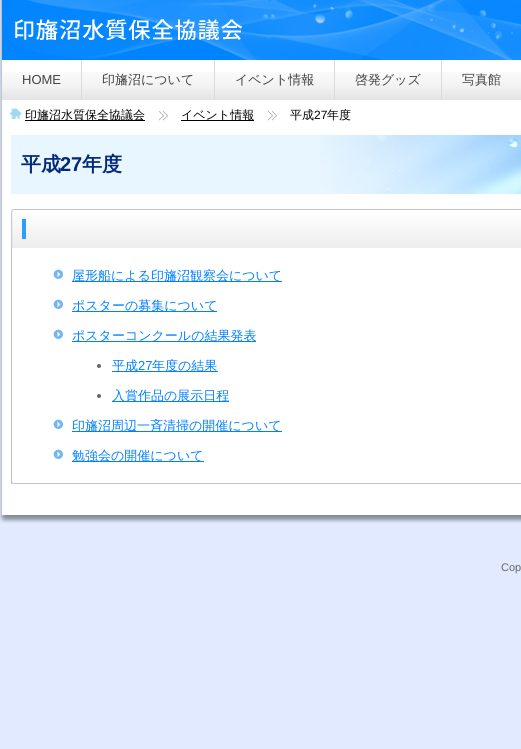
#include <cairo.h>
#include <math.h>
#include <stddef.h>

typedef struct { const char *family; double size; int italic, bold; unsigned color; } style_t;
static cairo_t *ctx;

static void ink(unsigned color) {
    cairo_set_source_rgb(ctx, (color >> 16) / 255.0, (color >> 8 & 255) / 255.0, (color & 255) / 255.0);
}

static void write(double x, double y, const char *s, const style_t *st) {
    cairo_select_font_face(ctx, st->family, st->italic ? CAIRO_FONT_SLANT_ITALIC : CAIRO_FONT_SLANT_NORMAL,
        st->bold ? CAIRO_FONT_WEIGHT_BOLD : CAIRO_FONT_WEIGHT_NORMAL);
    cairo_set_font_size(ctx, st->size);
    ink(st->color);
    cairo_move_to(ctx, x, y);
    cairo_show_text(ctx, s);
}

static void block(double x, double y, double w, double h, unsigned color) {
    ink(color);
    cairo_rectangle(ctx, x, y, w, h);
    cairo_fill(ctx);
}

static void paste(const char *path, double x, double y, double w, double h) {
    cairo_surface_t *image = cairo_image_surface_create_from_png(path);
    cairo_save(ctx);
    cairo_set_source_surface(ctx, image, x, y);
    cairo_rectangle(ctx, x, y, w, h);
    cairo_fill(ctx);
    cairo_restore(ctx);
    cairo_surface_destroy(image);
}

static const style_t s1 = {"Liberation Sans", 13, 0, 0, 0x434343};
static const style_t s2 = {"WenQuanYi Zen Hei Medium", 13, 0, 0, 0x434343};
static const style_t s3 = {"WenQuanYi Zen Hei Medium", 12, 0, 0, 0x000000};
static const style_t s4 = {"Liberation Sans", 12, 0, 0, 0x000000};
static const style_t s5 = {"WenQuanYi Zen Hei", 20, 0, 1, 0x02287b};
static const style_t s6 = {"Liberation Sans", 20, 0, 1, 0x02287b};
static const style_t s7 = {"WenQuanYi Zen Hei Medium", 13, 0, 0, 0x0080ff};
static const style_t s8 = {"Liberation Sans", 13, 0, 0, 0x0080ff};
static const style_t s9 = {"Liberation Sans", 11, 0, 0, 0x666666};

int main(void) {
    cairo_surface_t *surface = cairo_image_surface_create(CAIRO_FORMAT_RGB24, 521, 749);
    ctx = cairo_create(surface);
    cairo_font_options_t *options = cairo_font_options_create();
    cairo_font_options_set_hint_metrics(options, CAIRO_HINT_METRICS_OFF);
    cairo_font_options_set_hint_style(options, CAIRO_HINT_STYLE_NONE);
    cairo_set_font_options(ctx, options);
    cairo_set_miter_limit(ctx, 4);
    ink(0xe1eaff);
    cairo_paint(ctx);
    paste("pic1.png", 0, 0, 521, 504);
    paste("pic2.png", 2, 0, 519, 60);
    paste("pic3.png", 15, 0, 256, 60);
    paste("pic4.png", 2, 72, 519, 28);
    block(81, 60, 1, 40, 0xdcdad7);
    write(22, 84, "HOME", &s1);
    block(214, 60, 1, 40, 0xdcdad7);
    write(102, 84, "印旛沼について", &s2);
    block(334, 60, 1, 40, 0xdcdad7);
    write(235, 84, "イベント情報", &s2);
    block(441, 60, 1, 40, 0xdcdad7);
    write(355, 84, "啓発グッズ", &s2);
    write(462, 84, "写真館", &s2);
    paste("pic5.png", 9, 108, 13, 11);
    paste("pic6.png", 159, 111, 9, 10);
    block(25, 120, 120, 1, 0x000000);
    write(25, 119, "印旛沼水質保全協議会", &s3);
    paste("pic6.png", 268, 111, 9, 10);
    block(181, 120, 73, 1, 0x000000);
    write(181, 119, "イベント情報", &s3);
    write(290, 119, "平成", &s3);
    write(314, 119, "27", &s4);
    write(327, 119, "年度", &s3);
    block(11, 135, 309, 59, 0xe8f6ff);
    paste("pic7.png", 320, 135, 201, 59);
    write(21, 171, "平成", &s5);
    write(60, 171, "27", &s6);
    write(82, 171, "年度", &s5);
    paste("pic8.png", 11, 209, 510, 39);
    paste("pic9.png", 12, 481, 509, 3);
    block(11, 248, 1, 236, 0xc3c3c3);
    paste("pic10.png", 53, 269, 10, 10);
    block(72, 281, 210, 1, 0x0080ff);
    write(72, 280, "屋形船による印旛沼観察会について", &s7);
    paste("pic10.png", 53, 299, 10, 10);
    block(72, 311, 145, 1, 0x0080ff);
    write(72, 310, "ポスターの募集について", &s7);
    paste("pic10.png", 53, 329, 10, 10);
    block(72, 341, 184, 1, 0x0080ff);
    write(72, 340, "ポスターコンクールの結果発表", &s7);
    ink(0x666666);
    cairo_new_path(ctx);
    cairo_arc(ctx, 99, 366, 2, 0, 2 * M_PI);
    cairo_fill(ctx);
    block(112, 371, 106, 1, 0x0080ff);
    write(112, 370, "平成", &s7);
    write(138, 370, "27", &s8);
    write(152, 370, "年度の結果", &s7);
    ink(0x666666);
    cairo_new_path(ctx);
    cairo_arc(ctx, 99, 396, 2, 0, 2 * M_PI);
    cairo_fill(ctx);
    block(112, 401, 117, 1, 0x0080ff);
    write(112, 400, "入賞作品の展示日程", &s7);
    paste("pic10.png", 53, 419, 10, 10);
    block(72, 431, 210, 1, 0x0080ff);
    write(72, 430, "印旛沼周辺一斉清掃の開催について", &s7);
    paste("pic10.png", 53, 449, 10, 10);
    block(72, 461, 132, 1, 0x0080ff);
    write(72, 460, "勉強会の開催について", &s7);
    paste("pic11.png", 0, 504, 521, 19);
    write(501, 571, "Cop", &s9);
    cairo_surface_write_to_png(surface, "screenshot.png");
    cairo_font_options_destroy(options);
    cairo_destroy(ctx);
    cairo_surface_destroy(surface);
    return 0;
}
